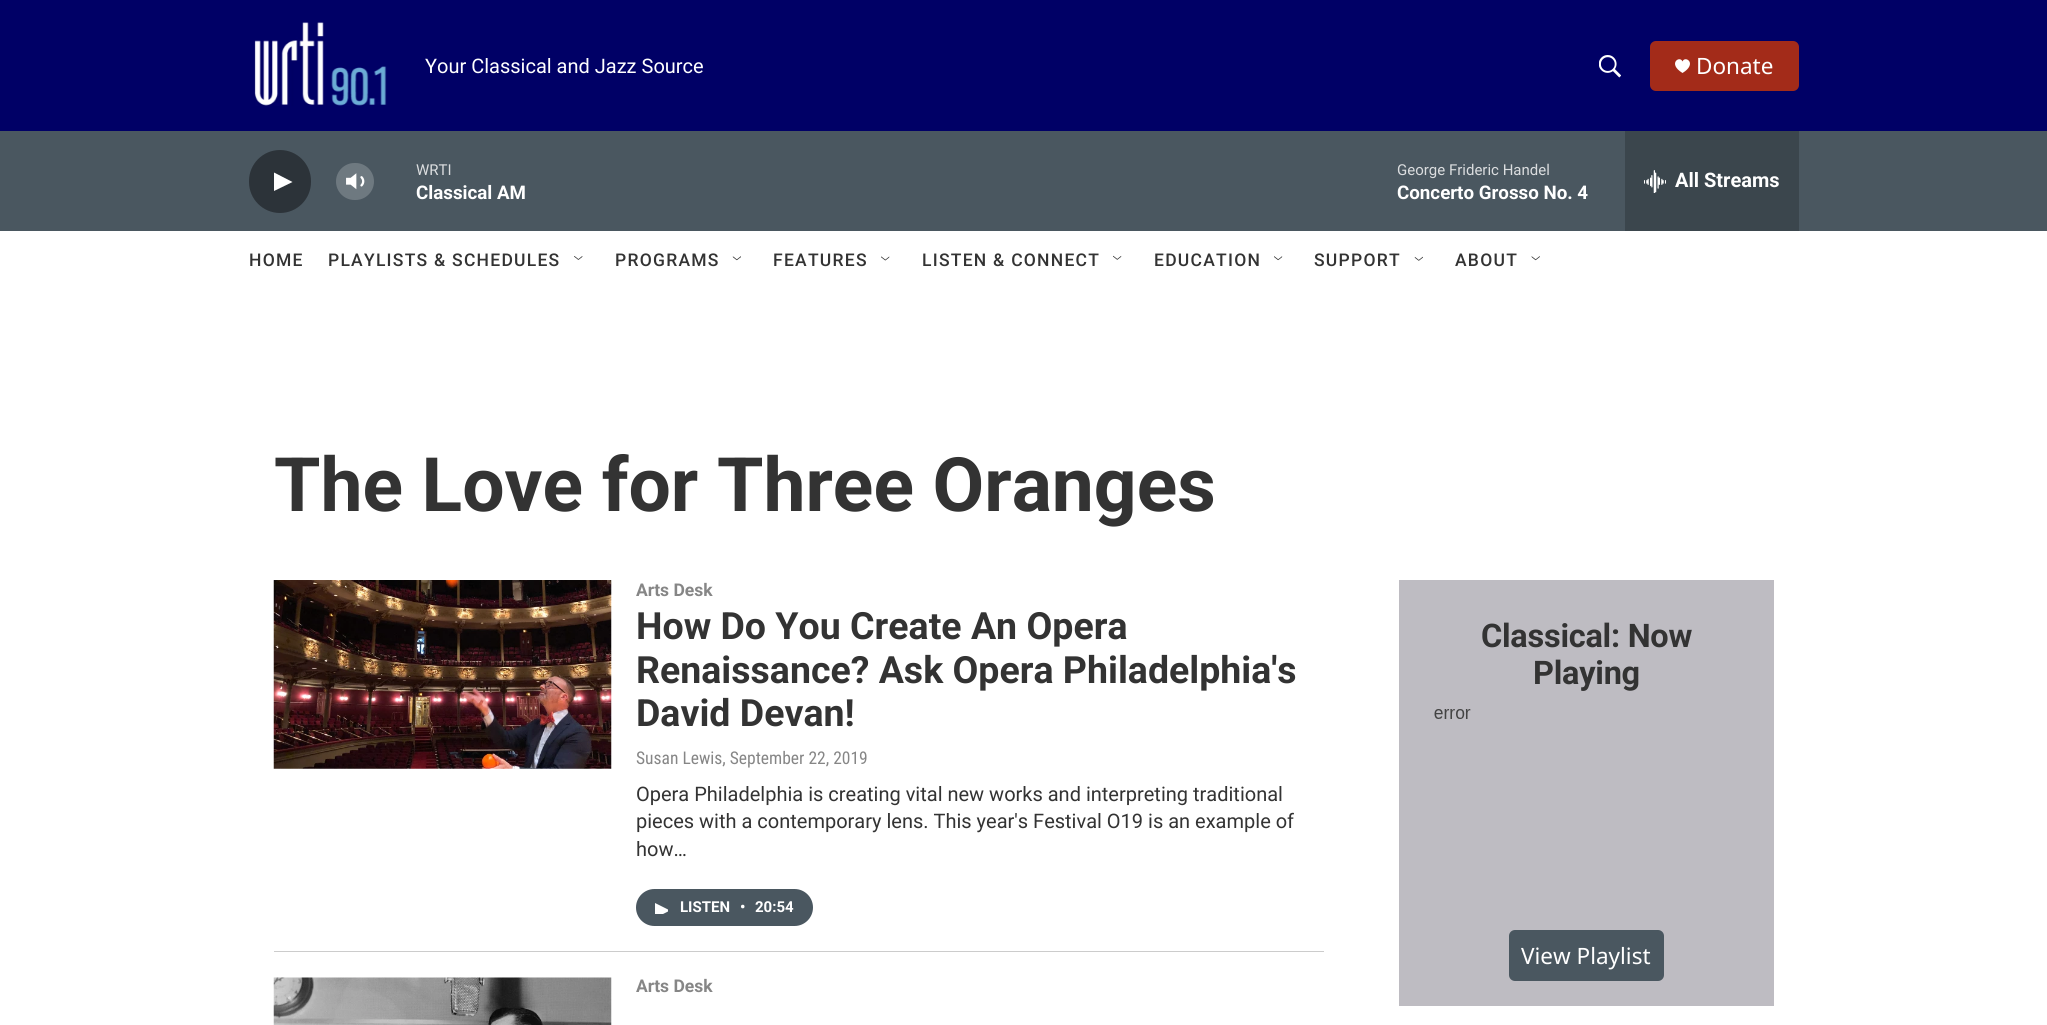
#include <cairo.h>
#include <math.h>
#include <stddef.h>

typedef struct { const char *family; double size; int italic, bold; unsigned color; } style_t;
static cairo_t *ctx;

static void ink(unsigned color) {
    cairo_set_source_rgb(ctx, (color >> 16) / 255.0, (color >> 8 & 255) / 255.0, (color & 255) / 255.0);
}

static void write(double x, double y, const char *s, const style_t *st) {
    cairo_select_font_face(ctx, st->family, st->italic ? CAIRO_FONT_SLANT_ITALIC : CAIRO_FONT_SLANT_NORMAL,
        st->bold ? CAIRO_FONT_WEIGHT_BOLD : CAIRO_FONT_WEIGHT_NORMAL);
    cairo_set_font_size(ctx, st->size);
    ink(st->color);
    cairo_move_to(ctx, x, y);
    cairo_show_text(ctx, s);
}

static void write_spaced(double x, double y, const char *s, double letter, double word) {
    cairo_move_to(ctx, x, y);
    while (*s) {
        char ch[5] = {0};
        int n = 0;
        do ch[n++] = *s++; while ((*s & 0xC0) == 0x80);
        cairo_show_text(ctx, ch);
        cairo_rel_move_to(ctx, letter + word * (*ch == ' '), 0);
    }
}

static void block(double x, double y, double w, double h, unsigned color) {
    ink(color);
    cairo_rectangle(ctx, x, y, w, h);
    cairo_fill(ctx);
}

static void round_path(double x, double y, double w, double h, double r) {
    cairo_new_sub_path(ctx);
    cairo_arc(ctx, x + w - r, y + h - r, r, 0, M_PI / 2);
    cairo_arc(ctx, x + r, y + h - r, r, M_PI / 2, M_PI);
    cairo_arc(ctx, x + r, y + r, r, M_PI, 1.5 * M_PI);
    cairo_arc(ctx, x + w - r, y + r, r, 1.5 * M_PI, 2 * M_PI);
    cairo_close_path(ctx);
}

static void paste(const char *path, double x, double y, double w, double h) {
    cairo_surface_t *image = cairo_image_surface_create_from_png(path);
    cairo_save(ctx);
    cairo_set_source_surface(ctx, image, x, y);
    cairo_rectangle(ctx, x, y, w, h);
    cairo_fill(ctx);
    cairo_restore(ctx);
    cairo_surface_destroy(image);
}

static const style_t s1 = {"Roboto", 20, 0, 0, 0xffffff};
static const style_t s2 = {"Noto Sans", 22.5, 0, 0, 0xffffff};
static const style_t s3 = {"Roboto", 15, 0, 0, 0xdbdddf};
static const style_t s4 = {"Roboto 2", 18.75, 0, 1, 0xffffff};
static const style_t s5 = {"Roboto 2", 20, 0, 1, 0xffffff};
static const style_t s6 = {"Roboto", 75, 0, 1, 0x333333};
static const style_t s7 = {"Roboto", 17.5, 0, 1, 0x868686};
static const style_t s8 = {"Roboto", 37.5, 0, 1, 0x333333};
static const style_t s9 = {"Roboto Condensed", 17.5, 0, 0, 0x868686};
static const style_t s10 = {"Roboto", 20, 0, 0, 0x333333};
static const style_t s11 = {"Roboto 2", 15, 0, 1, 0xffffff};

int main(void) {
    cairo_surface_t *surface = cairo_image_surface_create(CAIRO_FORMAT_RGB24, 2047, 1025);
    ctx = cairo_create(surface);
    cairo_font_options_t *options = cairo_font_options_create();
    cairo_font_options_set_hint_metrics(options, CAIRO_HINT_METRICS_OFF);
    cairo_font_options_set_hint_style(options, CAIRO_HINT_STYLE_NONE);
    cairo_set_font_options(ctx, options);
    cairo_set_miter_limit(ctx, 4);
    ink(0xffffff);
    cairo_paint(ctx);
    block(0, 0, 2047, 131, 0x000066);
    paste("pic1.png", 254, 22, 133, 84);
    write(425, 73, "Your Classical and Jazz Source", &s1);
    paste("pic2.png", 1599, 55, 22, 23);
    ink(0xa32b19);
    round_path(1650, 41, 149, 50, 6);
    cairo_fill(ctx);
    ink(0xffffff);
    cairo_new_path(ctx);
    cairo_move_to(ctx, 1682.5, 61.5);
    cairo_curve_to(ctx, 1680, 55, 1667, 63.5, 1682.5, 73);
    cairo_curve_to(ctx, 1698, 63.5, 1685, 55, 1682.5, 61.5);
    cairo_close_path(ctx);
    cairo_fill(ctx);
    write(1696, 74, "Donate", &s2);
    block(0, 131, 2047, 100, 0x4a5760);
    ink(0x2c3339);
    round_path(249, 150, 62, 63, 31);
    cairo_fill(ctx);
    ink(0xffffff);
    cairo_new_path(ctx);
    cairo_move_to(ctx, 274, 172.5);
    cairo_line_to(ctx, 292.5, 182);
    cairo_line_to(ctx, 274, 191);
    cairo_close_path(ctx);
    cairo_fill(ctx);
    paste("pic3.png", 346, 173, 19, 17);
    cairo_set_source_rgba(ctx, 1, 1, 1, 0.2);
    round_path(336, 163, 38, 37, 18.5);
    cairo_fill(ctx);
    write(416, 175, "WRTI", &s3);
    write(416, 199, "Classical AM", &s4);
    write(1397, 175, "George Frideric Handel", &s3);
    write(1397, 199, "Concerto Grosso No. 4", &s4);
    block(1625, 131, 174, 100, 0x3b464d);
    paste("pic4.png", 1644, 170, 22, 23);
    write(1675, 187, "All Streams", &s5);
    cairo_select_font_face(ctx, "Roboto Medium", CAIRO_FONT_SLANT_NORMAL, CAIRO_FONT_WEIGHT_NORMAL);
    cairo_set_font_size(ctx, 17.5);
    ink(0x333333);
    write_spaced(249, 266, "HOME", 1.25, 0);
    write_spaced(328, 266, "PLAYLISTS & SCHEDULES", 1.25, 0);
    paste("pic5.png", 574, 256, 9, 4);
    write_spaced(615, 266, "PROGRAMS", 1.25, 0);
    paste("pic6.png", 732, 256, 9, 5);
    write_spaced(773, 266, "FEATURES", 1.25, 0);
    paste("pic7.png", 881, 256, 9, 5);
    write_spaced(922, 266, "LISTEN & CONNECT", 1.25, 0);
    paste("pic8.png", 1113, 255, 9, 5);
    write_spaced(1154, 266, "EDUCATION", 1.25, 0);
    paste("pic9.png", 1274, 256, 9, 5);
    write_spaced(1314, 266, "SUPPORT", 1.25, 0);
    paste("pic10.png", 1414, 256, 9, 5);
    write_spaced(1455, 266, "ABOUT", 1.25, 0);
    paste("pic11.png", 1531, 256, 9, 5);
    write(274, 511, "The Love for Three Oranges", &s6);
    block(274, 951, 1050, 1, 0xcccccc);
    paste("pic12.png", 273, 580, 339, 189);
    write(636, 596, "Arts Desk", &s7);
    write(636, 639, "How Do You Create An Opera", &s8);
    write(636, 683, "Renaissance? Ask Opera Philadelphia's", &s8);
    write(636, 726, "David Devan!", &s8);
    write(636, 764, "Susan Lewis, September 22, 2019", &s9);
    write(636, 801, "Opera Philadelphia is creating vital new works and interpreting traditional", &s10);
    write(636, 828, "pieces with a contemporary lens. This year's Festival O19 is an example of", &s10);
    write(636, 856, "how…", &s10);
    ink(0x4a5760);
    round_path(636, 889, 177, 37, 18.5);
    cairo_fill(ctx);
    cairo_save(ctx);
    cairo_rectangle(ctx, 655, 901, 13, 13);
    cairo_clip(ctx);
    ink(0xffffff);
    cairo_new_path(ctx);
    cairo_move_to(ctx, 655, 903);
    cairo_line_to(ctx, 670, 910.5);
    cairo_line_to(ctx, 655, 918);
    cairo_close_path(ctx);
    cairo_fill(ctx);
    cairo_restore(ctx);
    write(680, 912, "LISTEN", &s11);
    write(740, 912, "•", &s11);
    write(755, 912, "20:54", &s11);
    paste("pic13.png", 273, 977, 339, 48);
    write(636, 992, "Arts Desk", &s7);
    block(1399, 580, 375, 426, 0xbebcc2);
    cairo_set_font_size(ctx, 32.5);
    ink(0x333333);
    write_spaced(1481, 647, "Classical: Now", -0.25, 0);
    write_spaced(1533, 684, "Playing", -0.25, 0);
    paste("pic14.png", 1434, 709, 37, 10);
    ink(0x4a5760);
    round_path(1509, 930, 155, 51, 6);
    cairo_fill(ctx);
    write(1521, 964, "View Playlist", &s2);
    cairo_surface_write_to_png(surface, "screenshot.png");
    cairo_font_options_destroy(options);
    cairo_destroy(ctx);
    cairo_surface_destroy(surface);
    return 0;
}
